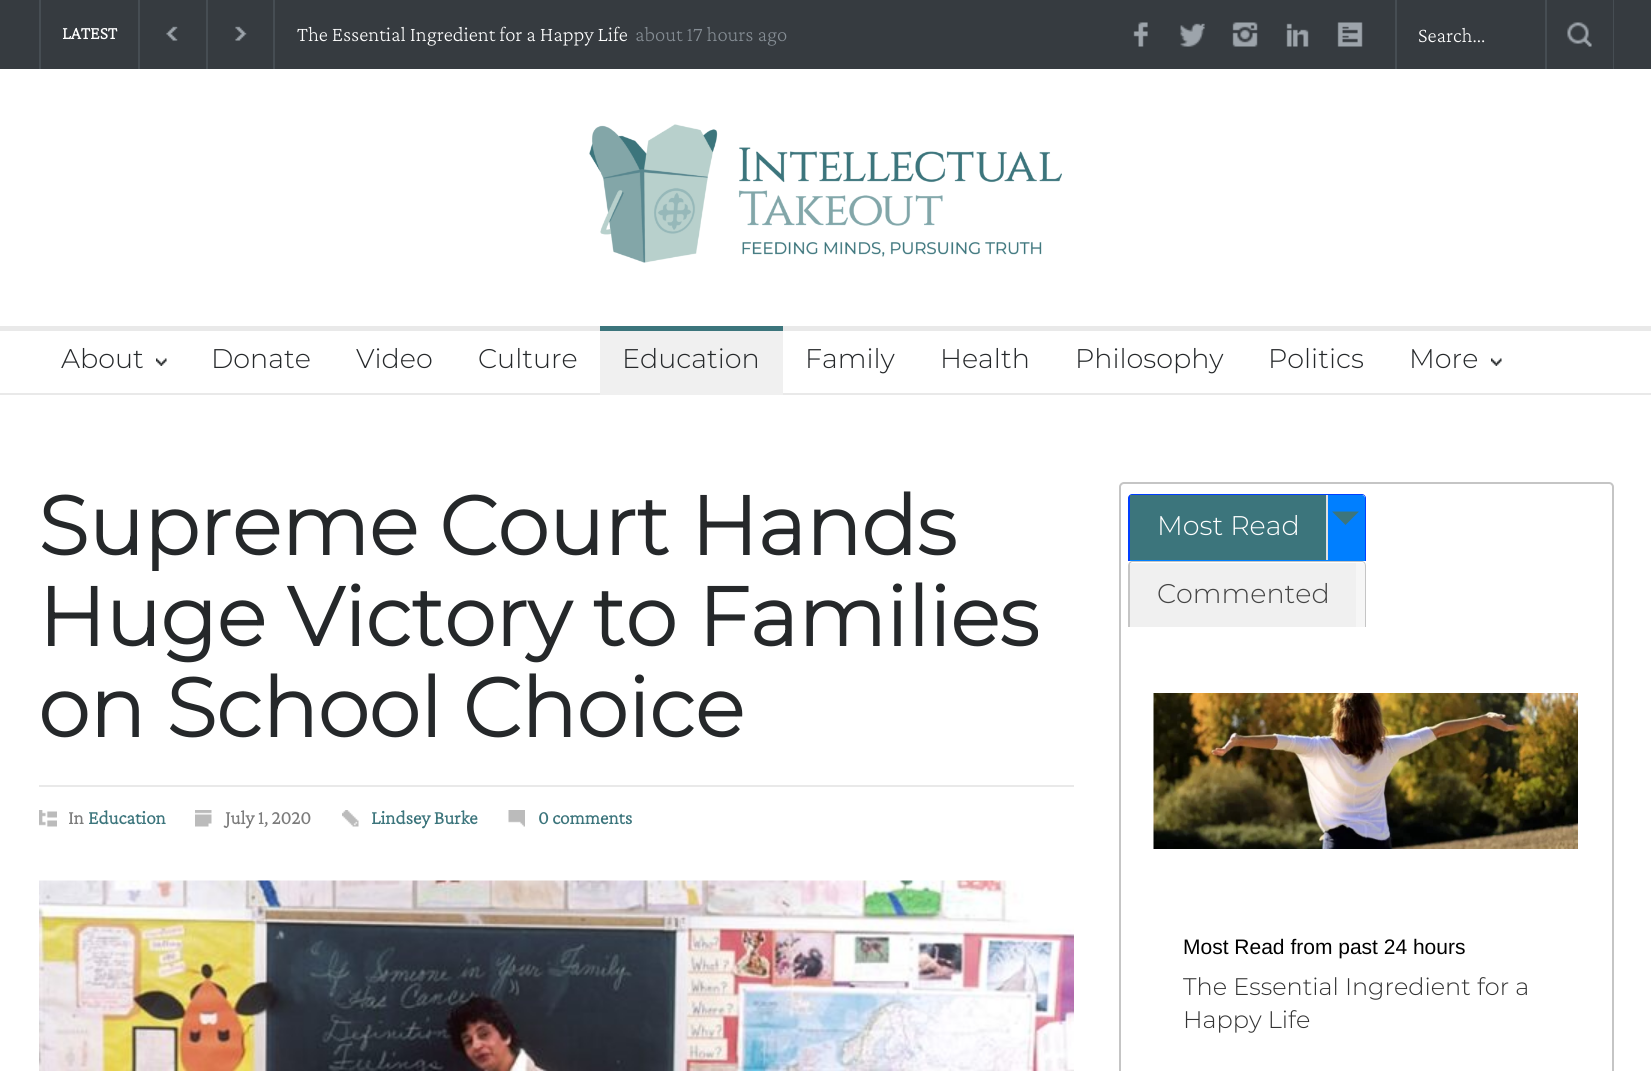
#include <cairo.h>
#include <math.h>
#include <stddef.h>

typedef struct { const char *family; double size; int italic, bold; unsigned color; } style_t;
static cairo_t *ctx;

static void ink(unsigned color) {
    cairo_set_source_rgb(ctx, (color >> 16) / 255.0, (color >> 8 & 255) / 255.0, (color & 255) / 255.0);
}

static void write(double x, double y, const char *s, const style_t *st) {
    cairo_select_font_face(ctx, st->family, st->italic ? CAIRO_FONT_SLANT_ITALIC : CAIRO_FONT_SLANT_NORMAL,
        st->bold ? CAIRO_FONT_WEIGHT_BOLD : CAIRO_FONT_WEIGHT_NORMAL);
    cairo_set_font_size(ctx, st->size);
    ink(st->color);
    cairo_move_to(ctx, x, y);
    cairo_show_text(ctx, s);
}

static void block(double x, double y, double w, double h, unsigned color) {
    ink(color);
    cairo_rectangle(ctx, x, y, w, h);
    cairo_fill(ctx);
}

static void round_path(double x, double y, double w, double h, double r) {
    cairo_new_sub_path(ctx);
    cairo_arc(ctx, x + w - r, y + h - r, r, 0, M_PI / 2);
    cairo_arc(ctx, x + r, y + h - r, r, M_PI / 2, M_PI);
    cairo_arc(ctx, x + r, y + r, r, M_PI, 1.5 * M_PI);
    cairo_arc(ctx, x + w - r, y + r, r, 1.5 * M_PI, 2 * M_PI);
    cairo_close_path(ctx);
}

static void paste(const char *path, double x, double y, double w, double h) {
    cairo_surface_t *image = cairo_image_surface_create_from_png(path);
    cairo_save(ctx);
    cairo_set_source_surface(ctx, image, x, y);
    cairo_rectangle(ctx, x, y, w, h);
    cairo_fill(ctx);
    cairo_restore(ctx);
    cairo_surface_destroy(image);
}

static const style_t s1 = {"Crimson Pro", 18, 0, 1, 0xffffff};
static const style_t s2 = {"Crimson Pro ExtraLight", 21, 0, 0, 0xffffff};
static const style_t s3 = {"Crimson Pro ExtraLight", 21, 0, 0, 0x858d94};
static const style_t s4 = {"Montserrat Thin", 27, 0, 0, 0x25282a};
static const style_t s5 = {"Montserrat", 82.5, 0, 1, 0x25282a};
static const style_t s6 = {"Crimson Pro", 19.5, 0, 1, 0x7c7c7c};
static const style_t s7 = {"Crimson Pro", 19.5, 0, 1, 0x3c757c};
static const style_t s8 = {"Montserrat Thin", 27, 0, 0, 0xffffff};
static const style_t s9 = {"Montserrat Thin", 27, 0, 0, 0x454545};
static const style_t s10 = {"Liberation Sans", 21, 0, 0, 0x000000};
static const style_t s11 = {"Montserrat Thin", 24, 0, 0, 0x333333};

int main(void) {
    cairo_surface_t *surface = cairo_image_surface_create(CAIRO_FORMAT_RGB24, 1651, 1071);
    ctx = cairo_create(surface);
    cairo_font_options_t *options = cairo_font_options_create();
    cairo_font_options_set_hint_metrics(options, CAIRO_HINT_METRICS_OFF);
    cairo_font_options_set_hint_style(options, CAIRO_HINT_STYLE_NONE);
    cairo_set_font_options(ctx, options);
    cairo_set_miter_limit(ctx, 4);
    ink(0xffffff);
    cairo_paint(ctx);
    block(0, 0, 1651, 69, 0x363b40);
    block(138, 0, 2, 69, 0x464d53);
    block(39, 0, 2, 69, 0x464d53);
    write(62, 39, "LATEST", &s1);
    block(206, 0, 2, 69, 0x464d53);
    paste("pic1.png", 166, 26, 12, 15);
    block(273, 0, 2, 69, 0x464d53);
    paste("pic2.png", 235, 26, 12, 15);
    write(297, 41, "The Essential Ingredient for a Happy Life", &s2);
    write(635, 41, "about 17 hours ago", &s3);
    paste("pic3.png", 1133, 22, 15, 25);
    paste("pic4.png", 1180, 23, 25, 24);
    paste("pic5.png", 1232, 22, 26, 25);
    paste("pic6.png", 1286, 23, 23, 24);
    paste("pic7.png", 1337, 22, 26, 25);
    block(1613, 0, 1, 69, 0x464d53);
    block(1395, 0, 2, 69, 0x464d53);
    block(1545, 0, 2, 69, 0x464d53);
    write(1418, 42, "Search...", &s2);
    paste("pic8.png", 1567, 22, 25, 25);
    paste("pic9.png", 589, 124, 473, 139);
    block(0, 326, 1651, 5, 0xe9e9e9);
    block(0, 393, 1651, 2, 0xe9e9e9);
    paste("pic10.png", 156, 358, 11, 8);
    write(61, 368, "About", &s4);
    write(211, 368, "Donate", &s4);
    write(356, 368, "Video", &s4);
    write(478, 368, "Culture", &s4);
    block(600, 331, 183, 64, 0xf0f0f0);
    block(600, 326, 183, 5, 0x3c757c);
    write(622, 368, "Education", &s4);
    write(805, 368, "Family", &s4);
    write(940, 368, "Health", &s4);
    write(1075, 368, "Philosophy", &s4);
    write(1268, 368, "Politics", &s4);
    paste("pic11.png", 1491, 358, 11, 8);
    write(1409, 368, "More", &s4);
    write(38, 555, "Supreme Court Hands", &s5);
    write(38, 646, "Huge Victory to Families", &s5);
    write(38, 737, "on School Choice", &s5);
    block(39, 785, 1035, 2, 0xe9e9e9);
    paste("pic12.png", 39, 810, 18, 17);
    write(68, 824, "In", &s6);
    write(88, 824, "Education", &s7);
    paste("pic13.png", 195, 810, 17, 17);
    write(225, 824, "July 1, 2020", &s6);
    paste("pic14.png", 342, 810, 17, 17);
    write(371, 824, "Lindsey Burke", &s7);
    paste("pic15.png", 508, 810, 17, 17);
    write(538, 824, "0 comments", &s7);
    paste("pic16.png", 39, 880, 1035, 191);
    round_path(1120, 483, 493, 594, 4);
    ink(0xc5c5c5);
    cairo_stroke(ctx);
    ink(0x007fff);
    cairo_new_path(ctx);
    cairo_move_to(ctx, 1133, 495);
    cairo_line_to(ctx, 1362, 495);
    cairo_curve_to(ctx, 1363.5, 495, 1365, 496.5, 1365, 498);
    cairo_line_to(ctx, 1365, 561);
    cairo_line_to(ctx, 1130, 561);
    cairo_line_to(ctx, 1130, 498);
    cairo_curve_to(ctx, 1130, 496.5, 1131.5, 495, 1133, 495);
    cairo_close_path(ctx);
    cairo_fill(ctx);
    ink(0x003eff);
    cairo_set_fill_rule(ctx, CAIRO_FILL_RULE_EVEN_ODD);
    cairo_new_path(ctx);
    cairo_move_to(ctx, 1132, 494);
    cairo_line_to(ctx, 1362, 494);
    cairo_curve_to(ctx, 1364, 494, 1366, 496, 1366, 498);
    cairo_line_to(ctx, 1366, 561);
    cairo_line_to(ctx, 1128, 561);
    cairo_line_to(ctx, 1128, 498);
    cairo_curve_to(ctx, 1128, 496, 1130, 494, 1132, 494);
    cairo_close_path(ctx);
    cairo_move_to(ctx, 1132, 495);
    cairo_line_to(ctx, 1362, 495);
    cairo_curve_to(ctx, 1364, 495, 1365, 496, 1365, 498);
    cairo_line_to(ctx, 1365, 561);
    cairo_line_to(ctx, 1130, 561);
    cairo_line_to(ctx, 1130, 498);
    cairo_curve_to(ctx, 1130, 496, 1131, 495, 1132, 495);
    cairo_close_path(ctx);
    cairo_fill(ctx);
    block(1130, 495, 196, 65, 0x3c757c);
    block(1326, 495, 2, 65, 0xe0e0e0);
    write(1157, 535, "Most Read", &s8);
    ink(0x3c757c);
    cairo_set_fill_rule(ctx, CAIRO_FILL_RULE_WINDING);
    cairo_new_path(ctx);
    cairo_move_to(ctx, 1332, 511.5);
    cairo_line_to(ctx, 1359, 511.5);
    cairo_line_to(ctx, 1345.5, 525);
    cairo_close_path(ctx);
    cairo_fill(ctx);
    ink(0xf6f6f6);
    cairo_new_path(ctx);
    cairo_move_to(ctx, 1133, 563);
    cairo_line_to(ctx, 1362, 563);
    cairo_curve_to(ctx, 1363.5, 563, 1365, 564.5, 1365, 566);
    cairo_line_to(ctx, 1365, 627);
    cairo_line_to(ctx, 1130, 627);
    cairo_line_to(ctx, 1130, 566);
    cairo_curve_to(ctx, 1130, 564.5, 1131.5, 563, 1133, 563);
    cairo_close_path(ctx);
    cairo_fill(ctx);
    ink(0xc5c5c5);
    cairo_set_fill_rule(ctx, CAIRO_FILL_RULE_EVEN_ODD);
    cairo_new_path(ctx);
    cairo_move_to(ctx, 1132, 561);
    cairo_line_to(ctx, 1362, 561);
    cairo_curve_to(ctx, 1364, 561, 1366, 563, 1366, 566);
    cairo_line_to(ctx, 1366, 627);
    cairo_line_to(ctx, 1128, 627);
    cairo_line_to(ctx, 1128, 566);
    cairo_curve_to(ctx, 1128, 563, 1130, 561, 1132, 561);
    cairo_close_path(ctx);
    cairo_move_to(ctx, 1132, 562);
    cairo_line_to(ctx, 1362, 562);
    cairo_curve_to(ctx, 1364, 562, 1365, 564, 1365, 566);
    cairo_line_to(ctx, 1365, 627);
    cairo_line_to(ctx, 1130, 627);
    cairo_line_to(ctx, 1130, 566);
    cairo_curve_to(ctx, 1130, 564, 1131, 562, 1132, 562);
    cairo_close_path(ctx);
    cairo_fill(ctx);
    block(1130, 563, 226, 64, 0xf0f0f0);
    write(1157, 603, "Commented", &s9);
    paste("pic17.png", 1153, 693, 425, 156);
    write(1183, 954, "Most Read from past 24 hours", &s10);
    write(1183, 995, "The Essential Ingredient for a", &s11);
    write(1183, 1028, "Happy Life", &s11);
    cairo_surface_write_to_png(surface, "screenshot.png");
    cairo_font_options_destroy(options);
    cairo_destroy(ctx);
    cairo_surface_destroy(surface);
    return 0;
}
